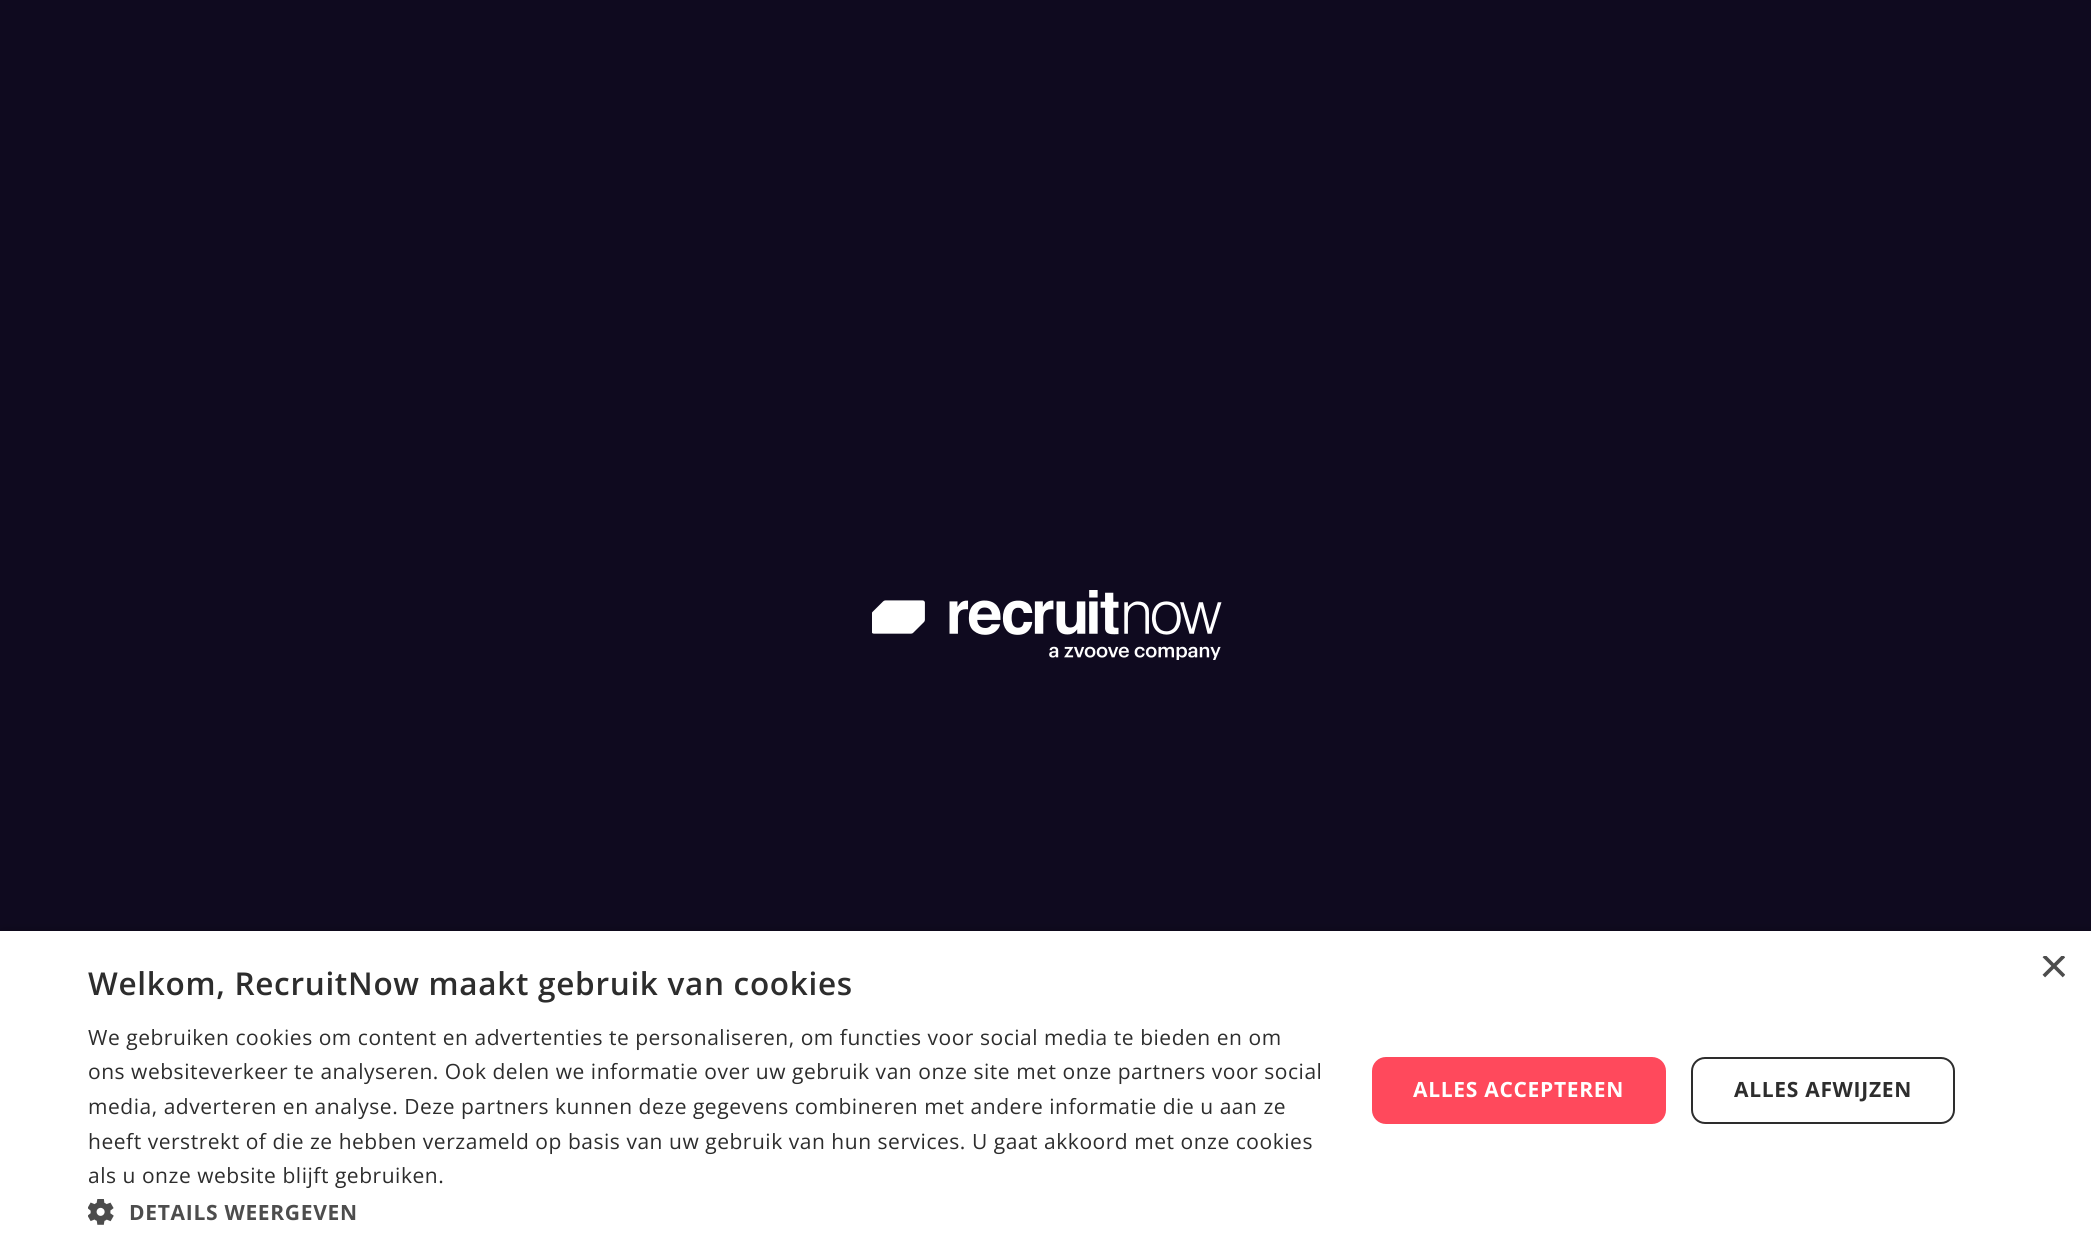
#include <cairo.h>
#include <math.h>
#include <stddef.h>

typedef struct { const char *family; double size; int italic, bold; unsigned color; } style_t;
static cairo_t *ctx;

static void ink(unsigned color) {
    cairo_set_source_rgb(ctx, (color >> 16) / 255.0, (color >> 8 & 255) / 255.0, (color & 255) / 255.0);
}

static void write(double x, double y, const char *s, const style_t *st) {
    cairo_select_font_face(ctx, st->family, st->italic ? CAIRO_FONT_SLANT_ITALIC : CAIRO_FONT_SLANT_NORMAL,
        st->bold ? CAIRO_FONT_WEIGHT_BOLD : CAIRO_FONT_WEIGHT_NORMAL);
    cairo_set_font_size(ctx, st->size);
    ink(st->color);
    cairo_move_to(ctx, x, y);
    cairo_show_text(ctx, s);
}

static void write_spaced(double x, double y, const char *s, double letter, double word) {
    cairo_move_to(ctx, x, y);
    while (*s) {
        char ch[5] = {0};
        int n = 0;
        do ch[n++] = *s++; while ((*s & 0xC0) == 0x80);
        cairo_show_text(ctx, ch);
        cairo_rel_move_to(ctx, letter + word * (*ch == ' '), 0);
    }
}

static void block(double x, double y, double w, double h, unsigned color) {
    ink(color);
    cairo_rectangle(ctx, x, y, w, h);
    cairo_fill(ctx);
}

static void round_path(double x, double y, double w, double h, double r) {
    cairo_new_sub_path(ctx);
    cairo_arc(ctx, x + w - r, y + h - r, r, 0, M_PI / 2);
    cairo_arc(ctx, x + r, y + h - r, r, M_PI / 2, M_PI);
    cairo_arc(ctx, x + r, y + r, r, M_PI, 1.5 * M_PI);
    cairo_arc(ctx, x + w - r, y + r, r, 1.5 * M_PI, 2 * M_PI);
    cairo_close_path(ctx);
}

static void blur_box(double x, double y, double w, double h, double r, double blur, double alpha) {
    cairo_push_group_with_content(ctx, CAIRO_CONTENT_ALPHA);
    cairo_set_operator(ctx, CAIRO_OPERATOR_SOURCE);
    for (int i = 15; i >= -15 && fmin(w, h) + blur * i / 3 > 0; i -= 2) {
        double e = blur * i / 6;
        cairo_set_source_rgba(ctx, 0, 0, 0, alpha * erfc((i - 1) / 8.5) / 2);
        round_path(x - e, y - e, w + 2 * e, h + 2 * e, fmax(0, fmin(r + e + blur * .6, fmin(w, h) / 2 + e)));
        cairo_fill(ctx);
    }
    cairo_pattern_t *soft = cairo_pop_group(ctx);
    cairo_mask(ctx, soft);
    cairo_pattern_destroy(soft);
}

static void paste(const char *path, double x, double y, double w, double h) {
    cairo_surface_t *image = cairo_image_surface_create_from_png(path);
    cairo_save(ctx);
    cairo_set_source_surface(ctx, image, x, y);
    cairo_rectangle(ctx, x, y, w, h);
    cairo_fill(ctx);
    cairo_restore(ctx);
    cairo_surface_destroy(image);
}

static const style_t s1 = {"Liberation Sans", 51, 0, 0, 0x4d4d4d};

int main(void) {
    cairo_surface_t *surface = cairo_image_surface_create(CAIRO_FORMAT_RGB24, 2091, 1248);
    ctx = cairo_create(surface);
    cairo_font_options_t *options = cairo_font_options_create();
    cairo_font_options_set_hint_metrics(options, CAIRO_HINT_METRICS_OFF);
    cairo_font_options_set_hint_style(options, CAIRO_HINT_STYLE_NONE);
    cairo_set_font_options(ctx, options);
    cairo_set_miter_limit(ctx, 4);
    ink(0x0f0a1f);
    cairo_paint(ctx);
    paste("pic1.png", 872, 590, 350, 70);
    ink(0x000000);
    blur_box(2, 935, 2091, 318, 0, 7, 0.35);
    block(0, 931, 2091, 317, 0xffffff);
    cairo_save(ctx);
    cairo_rectangle(ctx, 2039, 956, 26, 26);
    cairo_clip(ctx);
    write(2039, 983, "×", &s1);
    cairo_restore(ctx);
    cairo_select_font_face(ctx, "Open Sans SemiBold", CAIRO_FONT_SLANT_NORMAL, CAIRO_FONT_WEIGHT_NORMAL);
    cairo_set_font_size(ctx, 31.5);
    ink(0x2d2d2d);
    write_spaced(88, 995, "Welkom, RecruitNow maakt gebruik van cookies", 0.7, 0);
    cairo_select_font_face(ctx, "Open Sans", CAIRO_FONT_SLANT_NORMAL, CAIRO_FONT_WEIGHT_NORMAL);
    cairo_set_font_size(ctx, 21);
    write_spaced(88, 1045, "We gebruiken cookies om content en advertenties te personaliseren, om functies voor social media te bieden en om", 0.53, 0);
    write_spaced(88, 1079, "ons websiteverkeer te analyseren. Ook delen we informatie over uw gebruik van onze site met onze partners voor social", 0.53, 0);
    write_spaced(88, 1114, "media, adverteren en analyse. Deze partners kunnen deze gegevens combineren met andere informatie die u aan ze", 0.53, 0);
    write_spaced(88, 1149, "heeft verstrekt of die ze hebben verzameld op basis van uw gebruik van hun services. U gaat akkoord met onze cookies", 0.53, 0);
    write_spaced(88, 1183, "als u onze website blijft gebruiken.", 0.53, 0);
    paste("pic2.png", 88, 1199, 26, 26);
    cairo_select_font_face(ctx, "Open Sans", CAIRO_FONT_SLANT_NORMAL, CAIRO_FONT_WEIGHT_BOLD);
    ink(0x4d4d4d);
    write_spaced(129, 1220, "DETAILS WEERGEVEN", 0.7, 0);
    ink(0xff495c);
    round_path(1372, 1057, 294, 67, 14);
    cairo_fill(ctx);
    ink(0xffffff);
    write_spaced(1413, 1097, "ALLES ACCEPTEREN", 0.7, 0);
    round_path(1692, 1058, 262, 65, 13);
    ink(0x2d2d2d);
    cairo_stroke(ctx);
    write_spaced(1734, 1097, "ALLES AFWIJZEN", 0.7, 0);
    cairo_surface_write_to_png(surface, "screenshot.png");
    cairo_font_options_destroy(options);
    cairo_destroy(ctx);
    cairo_surface_destroy(surface);
    return 0;
}
